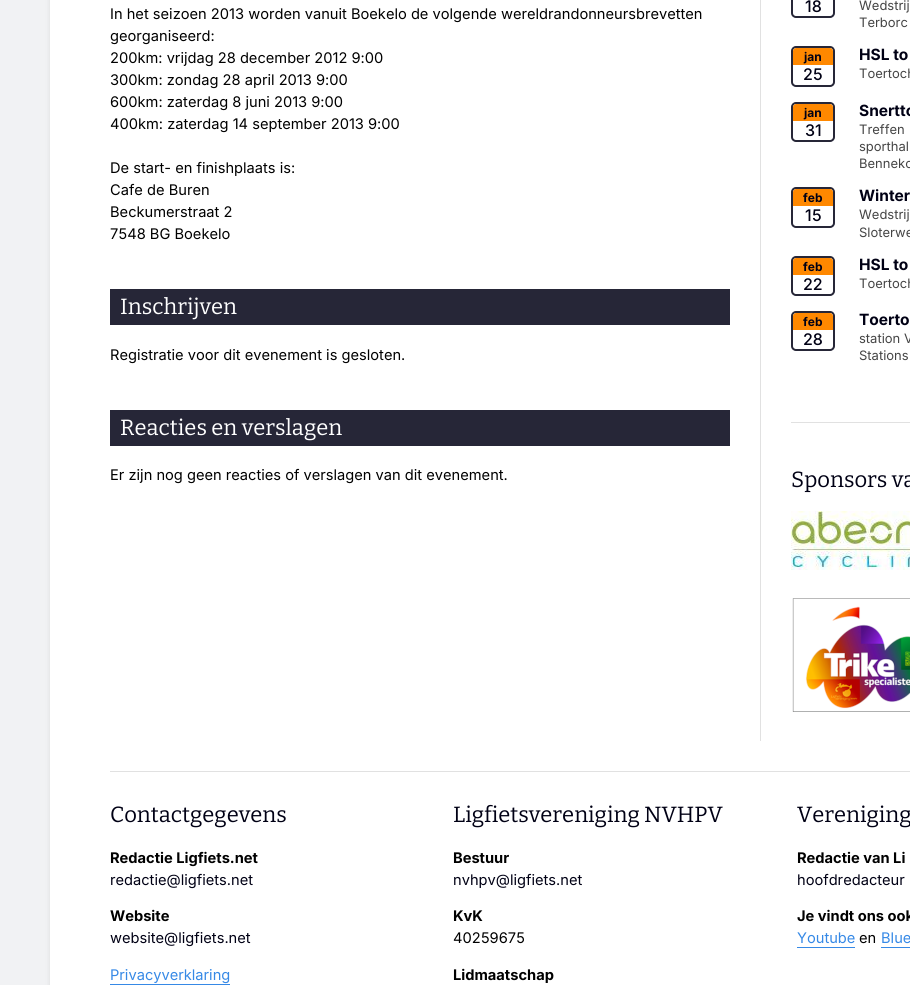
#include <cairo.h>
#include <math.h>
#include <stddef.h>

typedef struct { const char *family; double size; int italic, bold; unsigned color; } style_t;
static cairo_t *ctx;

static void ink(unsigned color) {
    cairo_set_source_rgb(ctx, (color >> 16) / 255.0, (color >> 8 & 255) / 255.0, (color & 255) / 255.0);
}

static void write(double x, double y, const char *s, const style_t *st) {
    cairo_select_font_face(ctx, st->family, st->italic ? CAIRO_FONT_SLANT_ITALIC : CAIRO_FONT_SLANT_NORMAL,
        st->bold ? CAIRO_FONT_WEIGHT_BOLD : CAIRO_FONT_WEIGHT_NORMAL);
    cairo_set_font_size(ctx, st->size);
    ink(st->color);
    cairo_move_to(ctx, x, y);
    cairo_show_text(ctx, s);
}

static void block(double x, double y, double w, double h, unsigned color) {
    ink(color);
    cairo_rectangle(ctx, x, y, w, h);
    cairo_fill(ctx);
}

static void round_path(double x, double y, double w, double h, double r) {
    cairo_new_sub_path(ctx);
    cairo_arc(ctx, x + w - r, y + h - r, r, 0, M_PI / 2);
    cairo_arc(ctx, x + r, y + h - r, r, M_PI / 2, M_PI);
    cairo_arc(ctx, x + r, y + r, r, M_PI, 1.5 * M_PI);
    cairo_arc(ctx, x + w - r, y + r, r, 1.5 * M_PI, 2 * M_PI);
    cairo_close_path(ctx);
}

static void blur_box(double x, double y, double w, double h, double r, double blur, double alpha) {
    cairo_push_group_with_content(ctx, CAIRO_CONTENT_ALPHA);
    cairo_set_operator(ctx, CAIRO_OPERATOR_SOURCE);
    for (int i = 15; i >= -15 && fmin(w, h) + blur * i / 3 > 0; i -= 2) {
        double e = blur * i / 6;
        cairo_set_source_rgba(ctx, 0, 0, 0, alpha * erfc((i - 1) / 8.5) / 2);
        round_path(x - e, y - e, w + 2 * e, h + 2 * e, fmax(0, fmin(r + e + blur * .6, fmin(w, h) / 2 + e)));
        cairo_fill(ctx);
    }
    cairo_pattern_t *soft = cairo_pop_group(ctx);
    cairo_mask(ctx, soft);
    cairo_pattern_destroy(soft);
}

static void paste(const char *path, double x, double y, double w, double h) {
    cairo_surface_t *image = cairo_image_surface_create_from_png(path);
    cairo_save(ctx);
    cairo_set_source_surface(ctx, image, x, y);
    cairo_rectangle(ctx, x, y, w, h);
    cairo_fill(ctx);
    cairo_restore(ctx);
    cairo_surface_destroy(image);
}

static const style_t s1 = {"Inter", 14.65, 0, 0, 0x000000};
static const style_t s2 = {"Bitter", 22, 0, 0, 0xffffff};
static const style_t s3 = {"Inter Medium", 16, 0, 0, 0x000014};
static const style_t s4 = {"Inter", 13, 0, 0, 0x444444};
static const style_t s5 = {"Inter", 12, 0, 1, 0x000014};
static const style_t s6 = {"Inter", 15.5, 0, 1, 0x000014};
static const style_t s7 = {"Bitter", 22, 0, 0, 0x000014};
static const style_t s8 = {"Inter", 14.65, 0, 1, 0x000000};
static const style_t s9 = {"Inter", 14.65, 0, 0, 0x000014};
static const style_t s10 = {"Inter", 14.65, 0, 0, 0x3689e6};

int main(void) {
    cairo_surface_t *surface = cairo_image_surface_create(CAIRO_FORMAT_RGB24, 910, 985);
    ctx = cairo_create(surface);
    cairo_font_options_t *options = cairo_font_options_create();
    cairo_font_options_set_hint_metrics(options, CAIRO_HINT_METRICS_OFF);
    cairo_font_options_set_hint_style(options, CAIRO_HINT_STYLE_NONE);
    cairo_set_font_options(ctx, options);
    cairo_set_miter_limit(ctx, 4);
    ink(0xf1f2f4);
    cairo_paint(ctx);
    ink(0x000000);
    blur_box(50, -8, 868, 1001, 0, 2.5, 0.1);
    block(50, 0, 860, 985, 0xffffff);
    write(110, 19, "In het seizoen 2013 worden vanuit Boekelo de volgende wereldrandonneursbrevetten", &s1);
    write(110, 41, "georganiseerd:", &s1);
    write(110, 63, "200km: vrijdag 28 december 2012 9:00", &s1);
    write(110, 85, "300km: zondag 28 april 2013 9:00", &s1);
    write(110, 107, "600km: zaterdag 8 juni 2013 9:00", &s1);
    write(110, 129, "400km: zaterdag 14 september 2013 9:00", &s1);
    write(110, 173, "De start- en finishplaats is:", &s1);
    write(110, 195, "Cafe de Buren", &s1);
    write(110, 217, "Beckumerstraat 2", &s1);
    write(110, 239, "7548 BG Boekelo", &s1);
    block(110, 289, 620, 36, 0x262637);
    write(120, 314, "Inschrijven", &s2);
    write(110, 360, "Registratie voor dit evenement is gesloten.", &s1);
    block(110, 410, 620, 36, 0x262637);
    write(120, 435, "Reacties en verslagen", &s2);
    write(110, 480, "Er zijn nog geen reacties of verslagen van dit evenement.", &s1);
    block(760, 0, 1, 741, 0xe1e1e1);
    round_path(792, -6, 42, 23, 4);
    ink(0x262637);
    cairo_stroke(ctx);
    write(805, 12, "18", &s3);
    write(859, 10, "Wedstrij", &s4);
    write(859, 27, "Terborc", &s4);
    round_path(792, 47, 42, 39, 4);
    ink(0x262637);
    cairo_stroke(ctx);
    ink(0xff8800);
    cairo_new_path(ctx);
    cairo_move_to(ctx, 796, 48);
    cairo_line_to(ctx, 830, 48);
    cairo_curve_to(ctx, 831.5, 48, 833, 49.5, 833, 51);
    cairo_line_to(ctx, 833, 65);
    cairo_line_to(ctx, 793, 65);
    cairo_line_to(ctx, 793, 51);
    cairo_curve_to(ctx, 793, 49.5, 794.5, 48, 796, 48);
    cairo_close_path(ctx);
    cairo_fill(ctx);
    write(804, 61, "jan", &s5);
    write(803, 80, "25", &s3);
    write(859, 60, "HSL to", &s6);
    write(859, 78, "Toertoch", &s4);
    round_path(792, 103, 42, 38, 4);
    ink(0x262637);
    cairo_stroke(ctx);
    ink(0xff8800);
    cairo_new_path(ctx);
    cairo_move_to(ctx, 796, 104);
    cairo_line_to(ctx, 830, 104);
    cairo_curve_to(ctx, 831.5, 104, 833, 105.5, 833, 107);
    cairo_line_to(ctx, 833, 121);
    cairo_line_to(ctx, 793, 121);
    cairo_line_to(ctx, 793, 107);
    cairo_curve_to(ctx, 793, 105.5, 794.5, 104, 796, 104);
    cairo_close_path(ctx);
    cairo_fill(ctx);
    write(804, 117, "jan", &s5);
    write(805, 136, "31", &s3);
    write(859, 116, "Snertto", &s6);
    write(859, 134, "Treffen", &s4);
    write(859, 151, "sporthal", &s4);
    write(859, 168, "Benneko", &s4);
    round_path(792, 188, 42, 39, 4);
    ink(0x262637);
    cairo_stroke(ctx);
    ink(0xff8800);
    cairo_new_path(ctx);
    cairo_move_to(ctx, 796, 189);
    cairo_line_to(ctx, 830, 189);
    cairo_curve_to(ctx, 831.5, 189, 833, 190.5, 833, 192);
    cairo_line_to(ctx, 833, 206);
    cairo_line_to(ctx, 793, 206);
    cairo_line_to(ctx, 793, 192);
    cairo_curve_to(ctx, 793, 190.5, 794.5, 189, 796, 189);
    cairo_close_path(ctx);
    cairo_fill(ctx);
    write(803, 202, "feb", &s5);
    write(805, 221, "15", &s3);
    write(859, 201, "Winter", &s6);
    write(859, 219, "Wedstrij", &s4);
    write(859, 237, "Sloterwe", &s4);
    round_path(792, 257, 42, 38, 4);
    ink(0x262637);
    cairo_stroke(ctx);
    ink(0xff8800);
    cairo_new_path(ctx);
    cairo_move_to(ctx, 796, 258);
    cairo_line_to(ctx, 830, 258);
    cairo_curve_to(ctx, 831.5, 258, 833, 259.5, 833, 261);
    cairo_line_to(ctx, 833, 275);
    cairo_line_to(ctx, 793, 275);
    cairo_line_to(ctx, 793, 261);
    cairo_curve_to(ctx, 793, 259.5, 794.5, 258, 796, 258);
    cairo_close_path(ctx);
    cairo_fill(ctx);
    write(803, 271, "feb", &s5);
    write(803, 290, "22", &s3);
    write(859, 270, "HSL to", &s6);
    write(859, 288, "Toertoch", &s4);
    round_path(792, 312, 42, 38, 4);
    ink(0x262637);
    cairo_stroke(ctx);
    ink(0xff8800);
    cairo_new_path(ctx);
    cairo_move_to(ctx, 796, 313);
    cairo_line_to(ctx, 830, 313);
    cairo_curve_to(ctx, 831.5, 313, 833, 314.5, 833, 316);
    cairo_line_to(ctx, 833, 330);
    cairo_line_to(ctx, 793, 330);
    cairo_line_to(ctx, 793, 316);
    cairo_curve_to(ctx, 793, 314.5, 794.5, 313, 796, 313);
    cairo_close_path(ctx);
    cairo_fill(ctx);
    write(803, 326, "feb", &s5);
    write(803, 345, "28", &s3);
    write(859, 325, "Toerto", &s6);
    write(859, 343, "station V", &s4);
    write(859, 360, "Stations", &s4);
    block(791, 422, 119, 1, 0xe1e1e1);
    write(791, 487, "Sponsors va", &s7);
    paste("pic1.png", 791, 511, 119, 59);
    paste("pic2.png", 792, 598, 118, 114);
    block(110, 771, 800, 1, 0xe1e1e1);
    write(110, 822, "Contactgegevens", &s7);
    write(110, 863, "Redactie Ligfiets.net", &s8);
    write(110, 885, "redactie@ligfiets.net", &s9);
    write(110, 921, "Website", &s8);
    write(110, 943, "website@ligfiets.net", &s9);
    write(110, 980, "Privacyverklaring", &s10);
    block(110, 984, 120, 1, 0x3689e6);
    write(453, 822, "Ligfietsvereniging NVHPV", &s7);
    write(453, 863, "Bestuur", &s8);
    write(453, 885, "nvhpv@ligfiets.net", &s9);
    write(453, 921, "KvK", &s8);
    write(453, 943, "40259675", &s1);
    write(453, 980, "Lidmaatschap", &s8);
    write(797, 822, "Vereniging", &s7);
    write(797, 863, "Redactie van Li", &s8);
    write(797, 885, "hoofdredacteur", &s9);
    write(797, 921, "Je vindt ons ook", &s8);
    write(797, 943, "Youtube", &s10);
    block(797, 947, 58, 1, 0x3689e6);
    write(859, 943, "en", &s1);
    write(881, 943, "Blue", &s10);
    block(881, 947, 29, 1, 0x3689e6);
    cairo_surface_write_to_png(surface, "screenshot.png");
    cairo_font_options_destroy(options);
    cairo_destroy(ctx);
    cairo_surface_destroy(surface);
    return 0;
}
